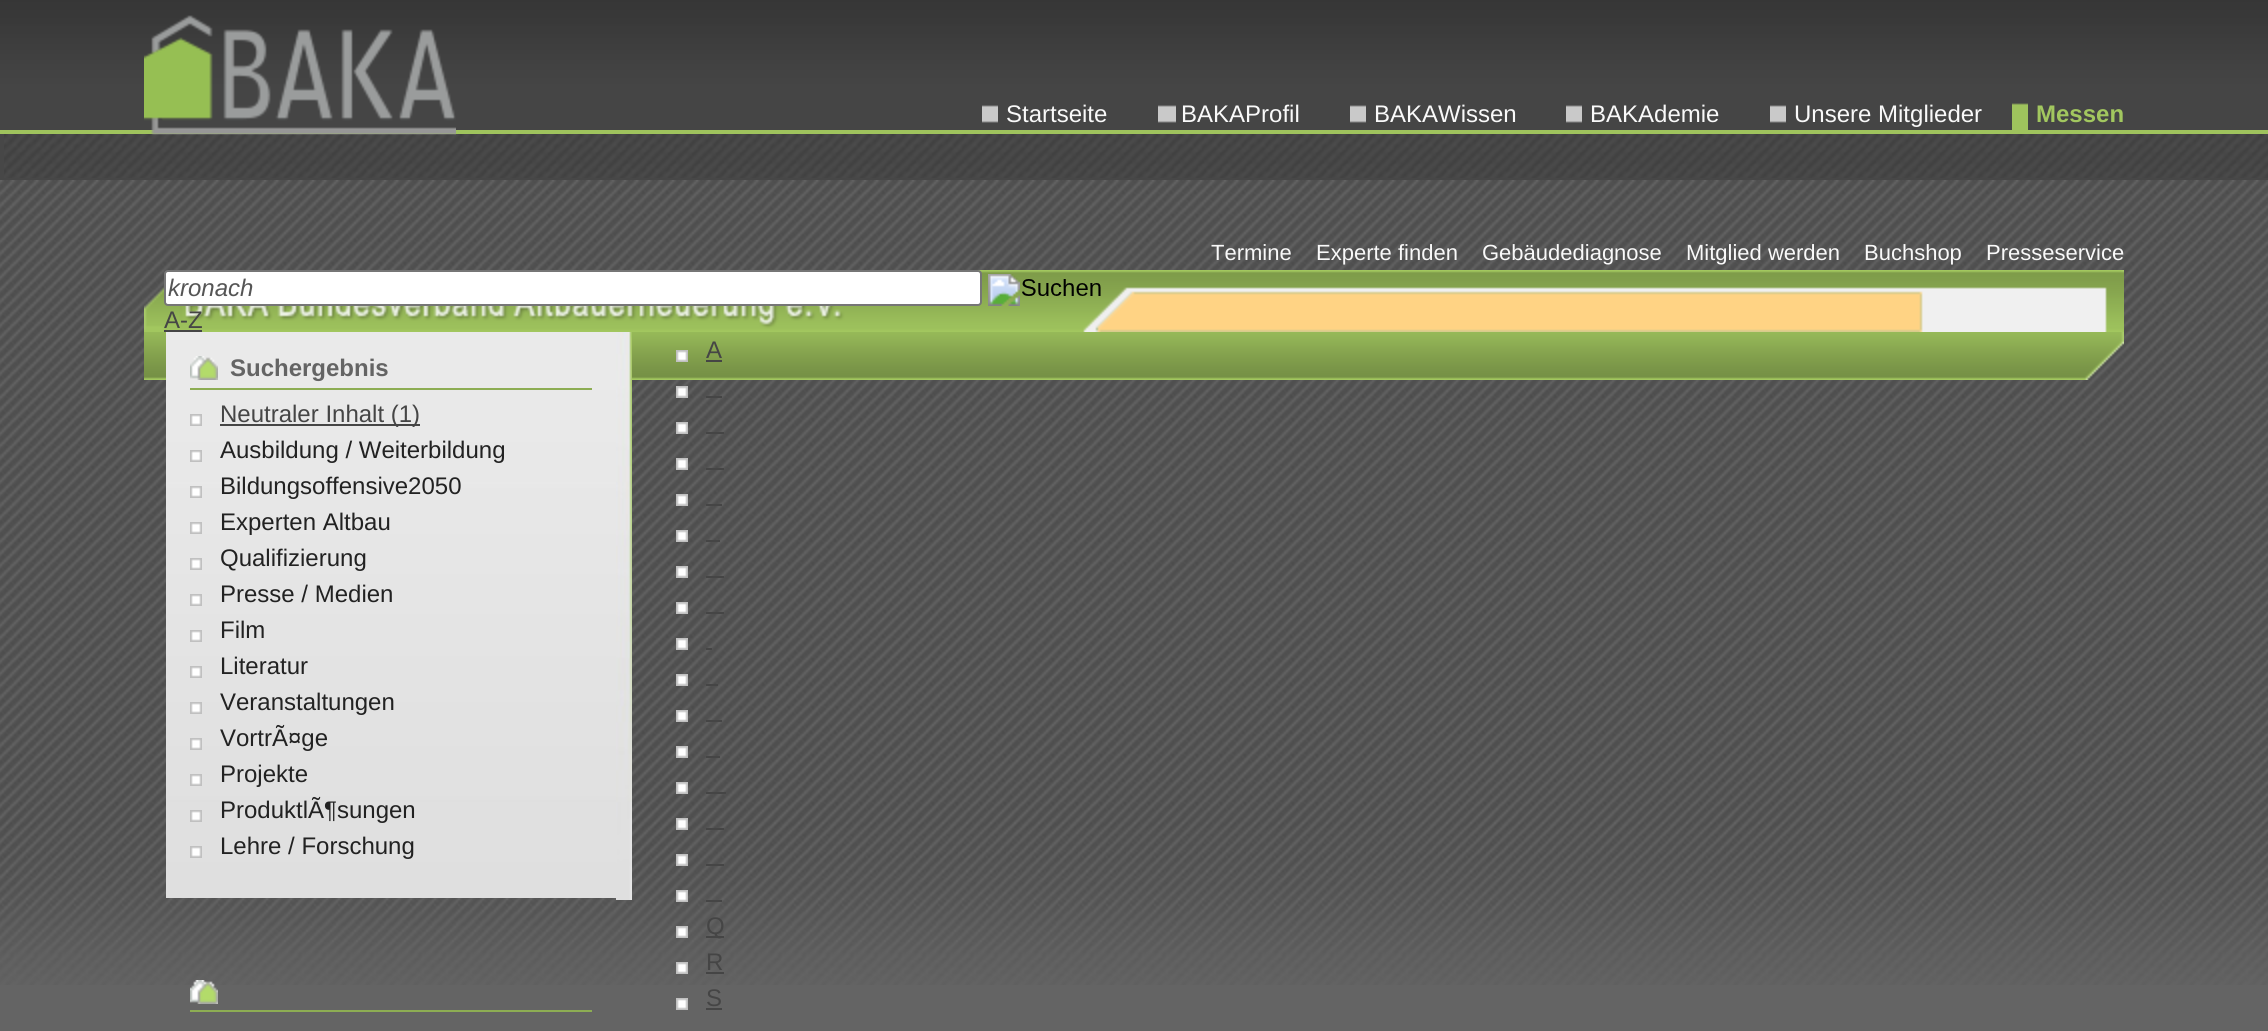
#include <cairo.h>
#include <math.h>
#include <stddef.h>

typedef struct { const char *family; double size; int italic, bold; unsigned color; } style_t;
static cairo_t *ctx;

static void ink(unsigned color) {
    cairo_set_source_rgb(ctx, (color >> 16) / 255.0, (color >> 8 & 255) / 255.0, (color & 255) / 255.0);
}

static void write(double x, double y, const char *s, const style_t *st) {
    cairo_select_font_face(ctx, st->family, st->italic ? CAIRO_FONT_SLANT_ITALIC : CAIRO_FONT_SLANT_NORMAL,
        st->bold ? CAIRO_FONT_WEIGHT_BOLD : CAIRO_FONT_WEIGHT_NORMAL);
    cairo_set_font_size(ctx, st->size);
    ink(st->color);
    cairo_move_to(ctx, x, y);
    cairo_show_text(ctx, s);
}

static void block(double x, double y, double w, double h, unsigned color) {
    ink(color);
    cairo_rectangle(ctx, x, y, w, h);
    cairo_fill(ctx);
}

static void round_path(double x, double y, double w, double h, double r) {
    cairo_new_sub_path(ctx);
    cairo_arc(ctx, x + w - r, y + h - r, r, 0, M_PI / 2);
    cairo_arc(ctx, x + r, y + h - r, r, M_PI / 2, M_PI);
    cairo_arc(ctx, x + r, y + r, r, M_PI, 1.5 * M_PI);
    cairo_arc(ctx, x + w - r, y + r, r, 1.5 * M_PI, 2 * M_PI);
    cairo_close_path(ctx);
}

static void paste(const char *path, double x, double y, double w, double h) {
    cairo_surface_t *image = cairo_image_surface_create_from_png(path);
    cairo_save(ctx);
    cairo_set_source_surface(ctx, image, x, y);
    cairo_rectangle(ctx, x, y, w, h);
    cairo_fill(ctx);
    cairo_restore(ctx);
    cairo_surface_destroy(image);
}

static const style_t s1 = {"Liberation Sans", 24, 0, 0, 0xf9f9f9};
static const style_t s2 = {"Liberation Sans", 24, 0, 1, 0xa2c75f};
static const style_t s3 = {"Liberation Sans", 22, 0, 0, 0xf9f9f9};
static const style_t s4 = {"Liberation Sans", 24, 1, 0, 0x555555};
static const style_t s5 = {"Liberation Sans", 24, 0, 0, 0x454545};
static const style_t s6 = {"Liberation Sans", 24, 0, 1, 0x646464};
static const style_t s7 = {"Liberation Sans", 24, 0, 0, 0x222222};

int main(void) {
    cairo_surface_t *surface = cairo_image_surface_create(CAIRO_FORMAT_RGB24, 2268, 1031);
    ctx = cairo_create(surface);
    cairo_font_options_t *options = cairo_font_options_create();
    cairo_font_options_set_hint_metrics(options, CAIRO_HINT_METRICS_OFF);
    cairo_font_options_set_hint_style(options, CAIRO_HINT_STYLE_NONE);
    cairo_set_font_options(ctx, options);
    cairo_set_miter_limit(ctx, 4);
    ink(0x646464);
    cairo_paint(ctx);
    paste("pic1.png", 0, 0, 2268, 130);
    block(0, 130, 2268, 4, 0x9fc35d);
    paste("pic6.png", 4, 134, 2264, 44);
    paste("pic2.png", 144, 15, 312, 120);
    paste("pic3.png", 982, 105, 16, 18);
    write(1006, 122, "Startseite", &s1);
    paste("pic4.png", 1158, 105, 18, 18);
    write(1181, 122, "BAKAProfil", &s1);
    paste("pic3.png", 1350, 105, 16, 18);
    write(1374, 122, "BAKAWissen", &s1);
    paste("pic3.png", 1566, 105, 16, 18);
    write(1590, 122, "BAKAdemie", &s1);
    paste("pic3.png", 1770, 105, 16, 18);
    write(1794, 122, "Unsere Mitglieder", &s1);
    paste("pic5.png", 2012, 103, 16, 27);
    write(2036, 122, "Messen", &s2);
    block(0, 178, 2268, 2, 0x474747);
    block(0, 134, 4, 48, 0x474747);
    paste("pic7.png", 0, 180, 2268, 134);
    write(1211, 260, "Termine", &s3);
    write(1316, 260, "Experte finden", &s3);
    write(1482, 260, "Gebäudediagnose", &s3);
    write(1686, 260, "Mitglied werden", &s3);
    write(1864, 260, "Buchshop", &s3);
    write(1986, 260, "Presseservice", &s3);
    paste("pic10.png", 0, 314, 2268, 671);
    paste("pic8.png", 144, 270, 1980, 62);
    ink(0xffffff);
    round_path(165, 271, 816, 34, 3);
    cairo_fill_preserve(ctx);
    ink(0x767676);
    cairo_stroke(ctx);
    write(168, 296, "kronach", &s4);
    paste("pic9.png", 988, 274, 113, 32);
    write(164, 328, "A-Z", &s5);
    block(164, 330, 38, 2, 0x454545);
    paste("pic11.png", 144, 332, 1980, 48);
    paste("pic12.png", 166, 332, 450, 566);
    paste("pic13.png", 190, 356, 28, 24);
    block(190, 388, 402, 2, 0x8dad53);
    write(230, 376, "Suchergebnis", &s6);
    paste("pic14.png", 190, 414, 12, 12);
    block(220, 424, 200, 2, 0x454545);
    write(220, 422, "Neutraler Inhalt (1)", &s5);
    paste("pic14.png", 190, 450, 12, 12);
    write(220, 458, "Ausbildung / Weiterbildung", &s7);
    paste("pic14.png", 190, 486, 12, 12);
    write(220, 494, "Bildungsoffensive2050", &s7);
    paste("pic14.png", 190, 522, 12, 12);
    write(220, 530, "Experten Altbau", &s7);
    paste("pic14.png", 190, 558, 12, 12);
    write(220, 566, "Qualifizierung", &s7);
    paste("pic14.png", 190, 594, 12, 12);
    write(220, 602, "Presse / Medien", &s7);
    paste("pic14.png", 190, 630, 12, 12);
    write(220, 638, "Film", &s7);
    paste("pic14.png", 190, 666, 12, 12);
    write(220, 674, "Literatur", &s7);
    paste("pic14.png", 190, 702, 12, 12);
    write(220, 710, "Veranstaltungen", &s7);
    paste("pic14.png", 190, 738, 12, 12);
    write(220, 746, "VortrÃ¤ge", &s7);
    paste("pic14.png", 190, 774, 12, 12);
    write(220, 782, "Projekte", &s7);
    paste("pic14.png", 190, 810, 12, 12);
    write(220, 818, "ProduktlÃ¶sungen", &s7);
    paste("pic14.png", 190, 846, 12, 12);
    write(220, 854, "Lehre / Forschung", &s7);
    paste("pic15.png", 190, 980, 28, 24);
    block(190, 1010, 402, 2, 0x8dad53);
    paste("pic16.png", 616, 332, 16, 568);
    paste("pic14.png", 676, 350, 12, 12);
    write(706, 358, "A", &s5);
    block(706, 360, 16, 2, 0x454545);
    paste("pic14.png", 676, 386, 12, 12);
    block(706, 396, 16, 2, 0x454545);
    paste("pic14.png", 676, 422, 12, 12);
    block(706, 432, 18, 2, 0x454545);
    paste("pic14.png", 676, 458, 12, 12);
    block(706, 468, 18, 2, 0x454545);
    paste("pic14.png", 676, 494, 12, 12);
    block(706, 504, 16, 2, 0x454545);
    paste("pic14.png", 676, 530, 12, 12);
    block(706, 540, 14, 2, 0x454545);
    paste("pic14.png", 676, 566, 12, 12);
    block(706, 576, 18, 2, 0x454545);
    paste("pic14.png", 676, 602, 12, 12);
    block(706, 612, 18, 2, 0x454545);
    paste("pic14.png", 676, 638, 12, 12);
    block(706, 648, 6, 2, 0x454545);
    paste("pic14.png", 676, 674, 12, 12);
    block(706, 684, 12, 2, 0x454545);
    paste("pic14.png", 676, 710, 12, 12);
    block(706, 720, 16, 2, 0x454545);
    paste("pic14.png", 676, 746, 12, 12);
    block(706, 756, 14, 2, 0x454545);
    paste("pic14.png", 676, 782, 12, 12);
    block(706, 792, 20, 2, 0x454545);
    paste("pic14.png", 676, 818, 12, 12);
    block(706, 828, 18, 2, 0x454545);
    paste("pic14.png", 676, 854, 12, 12);
    block(706, 864, 18, 2, 0x454545);
    paste("pic14.png", 676, 890, 12, 12);
    block(706, 900, 16, 2, 0x454545);
    paste("pic14.png", 676, 926, 12, 12);
    block(706, 936, 18, 2, 0x454545);
    write(706, 934, "Q", &s5);
    paste("pic14.png", 676, 962, 12, 12);
    write(706, 970, "R", &s5);
    block(706, 972, 18, 2, 0x454545);
    paste("pic14.png", 676, 998, 12, 12);
    write(706, 1006, "S", &s5);
    block(706, 1008, 16, 2, 0x454545);
    cairo_surface_write_to_png(surface, "screenshot.png");
    cairo_font_options_destroy(options);
    cairo_destroy(ctx);
    cairo_surface_destroy(surface);
    return 0;
}
